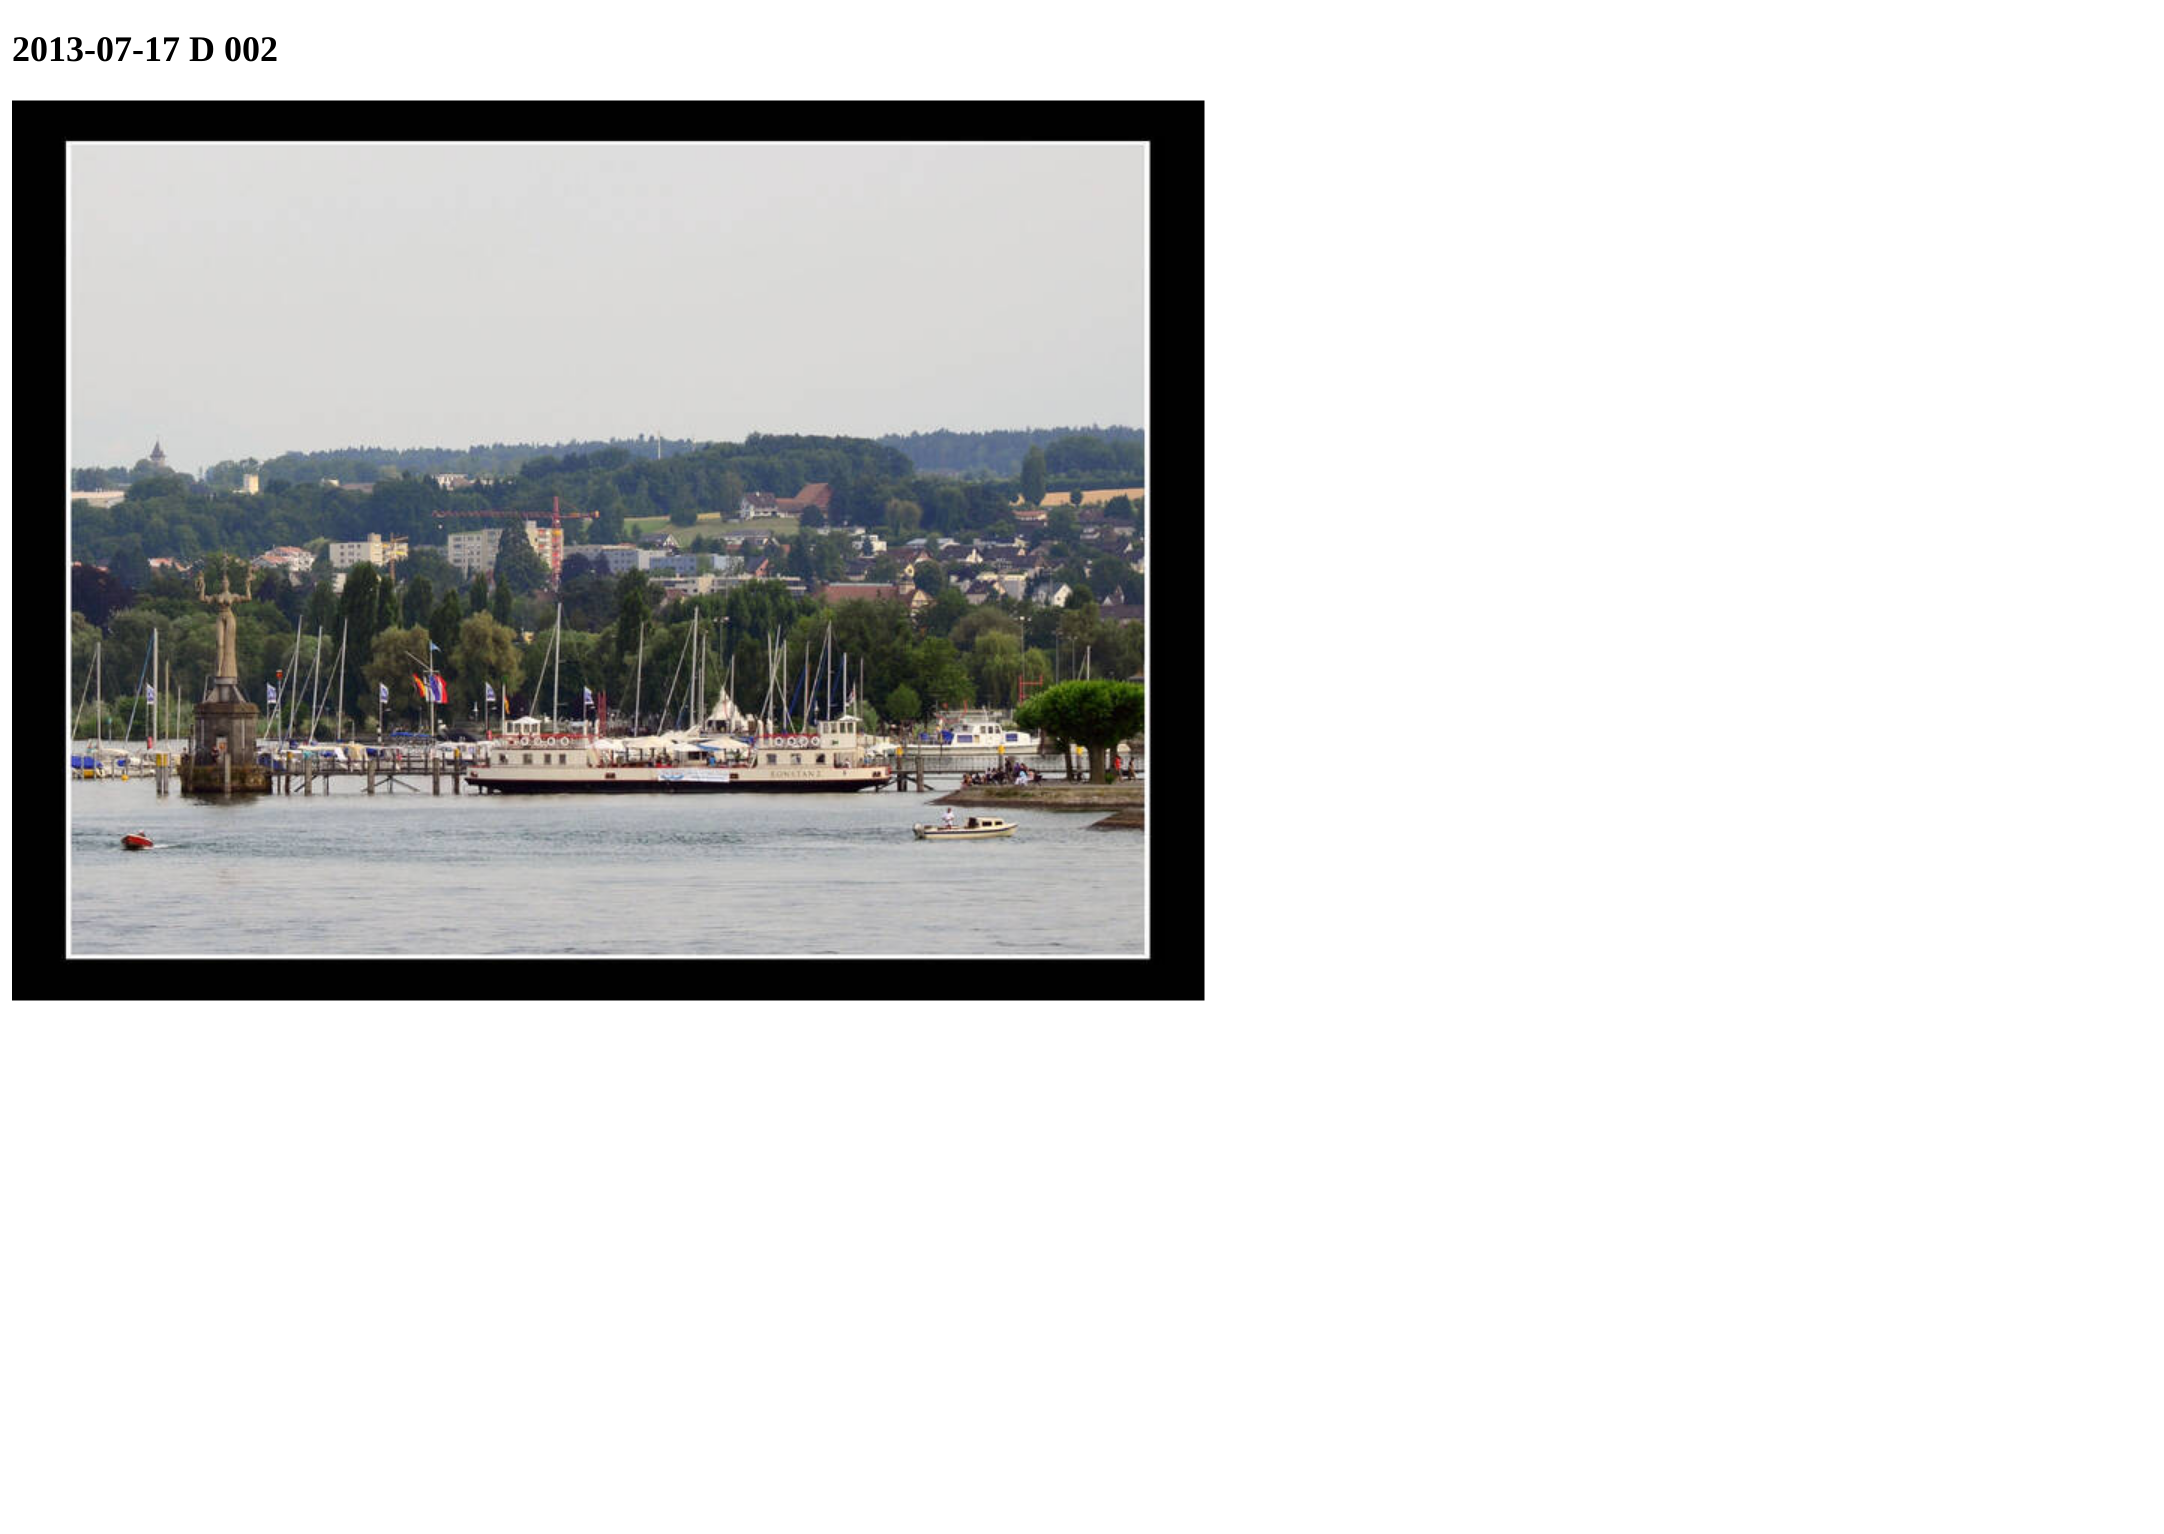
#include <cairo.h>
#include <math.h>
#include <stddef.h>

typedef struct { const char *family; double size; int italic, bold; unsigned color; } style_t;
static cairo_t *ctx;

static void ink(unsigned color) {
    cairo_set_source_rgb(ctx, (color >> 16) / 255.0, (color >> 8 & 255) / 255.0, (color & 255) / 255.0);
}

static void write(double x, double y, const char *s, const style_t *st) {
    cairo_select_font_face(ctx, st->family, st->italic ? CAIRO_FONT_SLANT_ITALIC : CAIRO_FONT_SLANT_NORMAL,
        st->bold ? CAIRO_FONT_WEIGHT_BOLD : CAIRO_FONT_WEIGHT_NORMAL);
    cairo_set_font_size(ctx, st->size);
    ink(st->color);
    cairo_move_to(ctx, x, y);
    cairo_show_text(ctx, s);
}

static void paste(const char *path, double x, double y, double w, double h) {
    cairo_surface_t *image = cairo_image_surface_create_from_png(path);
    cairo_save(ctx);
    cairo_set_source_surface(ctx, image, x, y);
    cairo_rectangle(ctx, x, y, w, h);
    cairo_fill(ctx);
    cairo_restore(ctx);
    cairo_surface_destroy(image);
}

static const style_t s1 = {"Liberation Serif", 36, 0, 1, 0x000000};

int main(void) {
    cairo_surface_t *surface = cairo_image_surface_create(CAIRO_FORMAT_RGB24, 2164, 1534);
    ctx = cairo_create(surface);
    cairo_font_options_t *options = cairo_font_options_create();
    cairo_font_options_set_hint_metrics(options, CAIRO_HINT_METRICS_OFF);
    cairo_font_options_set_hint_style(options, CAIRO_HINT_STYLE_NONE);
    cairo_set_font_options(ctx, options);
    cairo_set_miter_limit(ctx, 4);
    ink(0xffffff);
    cairo_paint(ctx);
    write(12, 61, "2013-07-17 D 002", &s1);
    paste("pic1.png", 12, 100, 1193, 901);
    cairo_surface_write_to_png(surface, "screenshot.png");
    cairo_font_options_destroy(options);
    cairo_destroy(ctx);
    cairo_surface_destroy(surface);
    return 0;
}
